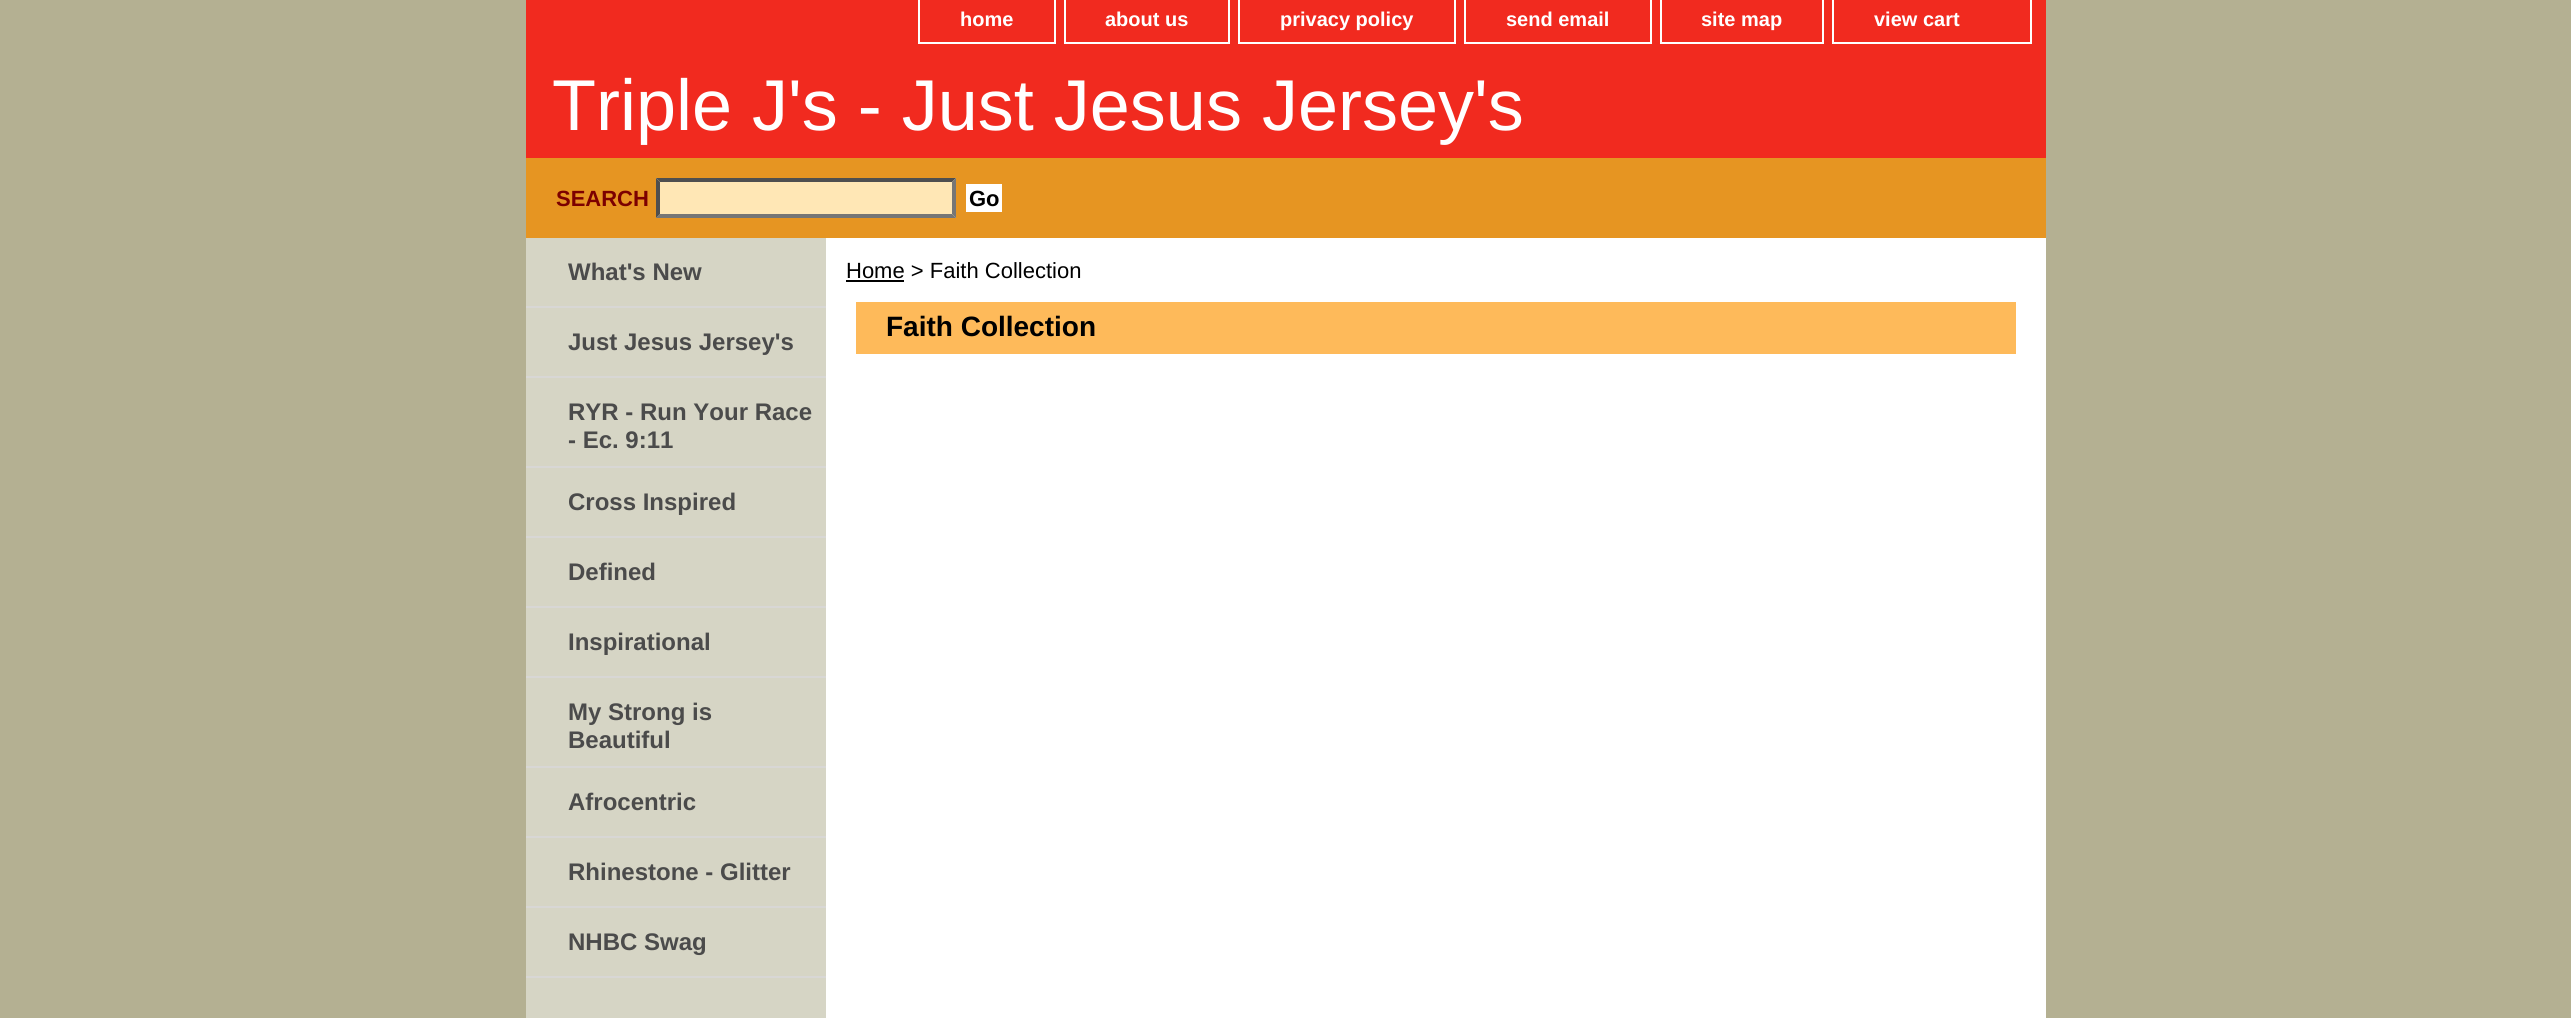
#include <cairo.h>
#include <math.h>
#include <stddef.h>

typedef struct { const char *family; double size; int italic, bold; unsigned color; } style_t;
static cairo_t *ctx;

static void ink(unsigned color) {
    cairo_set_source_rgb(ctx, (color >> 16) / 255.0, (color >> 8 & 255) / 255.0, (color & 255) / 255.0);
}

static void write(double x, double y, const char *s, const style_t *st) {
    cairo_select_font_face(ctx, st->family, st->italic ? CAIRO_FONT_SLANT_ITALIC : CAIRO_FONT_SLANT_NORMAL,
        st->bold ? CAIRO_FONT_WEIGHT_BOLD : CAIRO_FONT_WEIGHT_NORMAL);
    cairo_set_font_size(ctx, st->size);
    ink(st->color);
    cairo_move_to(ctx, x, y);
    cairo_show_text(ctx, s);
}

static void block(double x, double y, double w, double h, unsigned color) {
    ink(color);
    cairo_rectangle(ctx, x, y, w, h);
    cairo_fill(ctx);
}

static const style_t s1 = {"Liberation Sans", 20, 0, 1, 0xffffff};
static const style_t s2 = {"Liberation Sans", 72, 0, 0, 0xffffff};
static const style_t s3 = {"Liberation Sans", 22, 0, 1, 0x7c0000};
static const style_t s4 = {"Liberation Sans", 22, 0, 1, 0x000000};
static const style_t s5 = {"Liberation Sans", 24, 0, 1, 0x4b4b4b};
static const style_t s6 = {"Liberation Sans", 22, 0, 0, 0x000000};
static const style_t s7 = {"Liberation Sans", 28, 0, 1, 0x000000};

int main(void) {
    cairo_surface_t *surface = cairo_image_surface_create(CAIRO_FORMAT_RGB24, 2571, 1018);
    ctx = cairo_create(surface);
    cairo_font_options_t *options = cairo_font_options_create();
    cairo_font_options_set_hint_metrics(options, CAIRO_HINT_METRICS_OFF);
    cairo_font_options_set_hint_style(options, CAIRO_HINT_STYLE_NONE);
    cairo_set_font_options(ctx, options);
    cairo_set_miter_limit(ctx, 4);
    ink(0xb4b092);
    cairo_paint(ctx);
    block(526, 0, 1520, 158, 0xf12a1f);
    block(1054, 0, 2, 44, 0xffffff);
    block(918, 42, 138, 2, 0xffffff);
    block(918, 0, 2, 44, 0xffffff);
    write(960, 26, "home", &s1);
    block(1228, 0, 2, 44, 0xffffff);
    block(1064, 42, 166, 2, 0xffffff);
    block(1064, 0, 2, 44, 0xffffff);
    write(1105, 26, "about us", &s1);
    block(1454, 0, 2, 44, 0xffffff);
    block(1238, 42, 218, 2, 0xffffff);
    block(1238, 0, 2, 44, 0xffffff);
    write(1280, 26, "privacy policy", &s1);
    block(1650, 0, 2, 44, 0xffffff);
    block(1464, 42, 188, 2, 0xffffff);
    block(1464, 0, 2, 44, 0xffffff);
    write(1506, 26, "send email", &s1);
    block(1822, 0, 2, 44, 0xffffff);
    block(1660, 42, 164, 2, 0xffffff);
    block(1660, 0, 2, 44, 0xffffff);
    write(1701, 26, "site map", &s1);
    block(2030, 0, 2, 44, 0xffffff);
    block(1832, 42, 200, 2, 0xffffff);
    block(1832, 0, 2, 44, 0xffffff);
    write(1874, 26, "view cart", &s1);
    write(552, 130, "Triple J's - Just Jesus Jersey's", &s2);
    block(526, 158, 1520, 80, 0xe69522);
    write(556, 206, "SEARCH", &s3);
    block(656, 178, 300, 40, 0xffe7b5);
    ink(0x4f4f4f);
    cairo_new_path(ctx);
    cairo_move_to(ctx, 656, 178);
    cairo_line_to(ctx, 956, 178);
    cairo_line_to(ctx, 952, 182);
    cairo_line_to(ctx, 660, 182);
    cairo_close_path(ctx);
    cairo_fill(ctx);
    ink(0x767676);
    cairo_new_path(ctx);
    cairo_move_to(ctx, 956, 178);
    cairo_line_to(ctx, 956, 218);
    cairo_line_to(ctx, 952, 214);
    cairo_line_to(ctx, 952, 182);
    cairo_close_path(ctx);
    cairo_fill(ctx);
    cairo_new_path(ctx);
    cairo_move_to(ctx, 956, 218);
    cairo_line_to(ctx, 656, 218);
    cairo_line_to(ctx, 660, 214);
    cairo_line_to(ctx, 952, 214);
    cairo_close_path(ctx);
    cairo_fill(ctx);
    ink(0x4f4f4f);
    cairo_new_path(ctx);
    cairo_move_to(ctx, 656, 218);
    cairo_line_to(ctx, 656, 178);
    cairo_line_to(ctx, 660, 182);
    cairo_line_to(ctx, 660, 214);
    cairo_close_path(ctx);
    cairo_fill(ctx);
    block(966, 184, 36, 28, 0xffffff);
    write(969, 206, "Go", &s4);
    block(826, 238, 1220, 780, 0xffffff);
    block(526, 238, 300, 780, 0xd6d5c5);
    block(526, 306, 300, 2, 0xd8d7d5);
    write(568, 280, "What's New", &s5);
    block(526, 376, 300, 2, 0xd8d7d5);
    write(568, 350, "Just Jesus Jersey's", &s5);
    block(526, 466, 300, 2, 0xd8d7d5);
    write(568, 420, "RYR - Run Your Race", &s5);
    write(568, 448, "- Ec. 9:11", &s5);
    block(526, 536, 300, 2, 0xd8d7d5);
    write(568, 510, "Cross Inspired", &s5);
    block(526, 606, 300, 2, 0xd8d7d5);
    write(568, 580, "Defined", &s5);
    block(526, 676, 300, 2, 0xd8d7d5);
    write(568, 650, "Inspirational", &s5);
    block(526, 766, 300, 2, 0xd8d7d5);
    write(568, 720, "My Strong is", &s5);
    write(568, 748, "Beautiful", &s5);
    block(526, 836, 300, 2, 0xd8d7d5);
    write(568, 810, "Afrocentric", &s5);
    block(526, 906, 300, 2, 0xd8d7d5);
    write(568, 880, "Rhinestone - Glitter", &s5);
    block(526, 976, 300, 2, 0xd8d7d5);
    write(568, 950, "NHBC Swag", &s5);
    write(846, 278, "Home > Faith Collection", &s6);
    block(846, 280, 58, 2, 0x000000);
    block(856, 302, 1160, 52, 0xfeba5a);
    write(886, 336, "Faith Collection", &s7);
    cairo_surface_write_to_png(surface, "screenshot.png");
    cairo_font_options_destroy(options);
    cairo_destroy(ctx);
    cairo_surface_destroy(surface);
    return 0;
}
